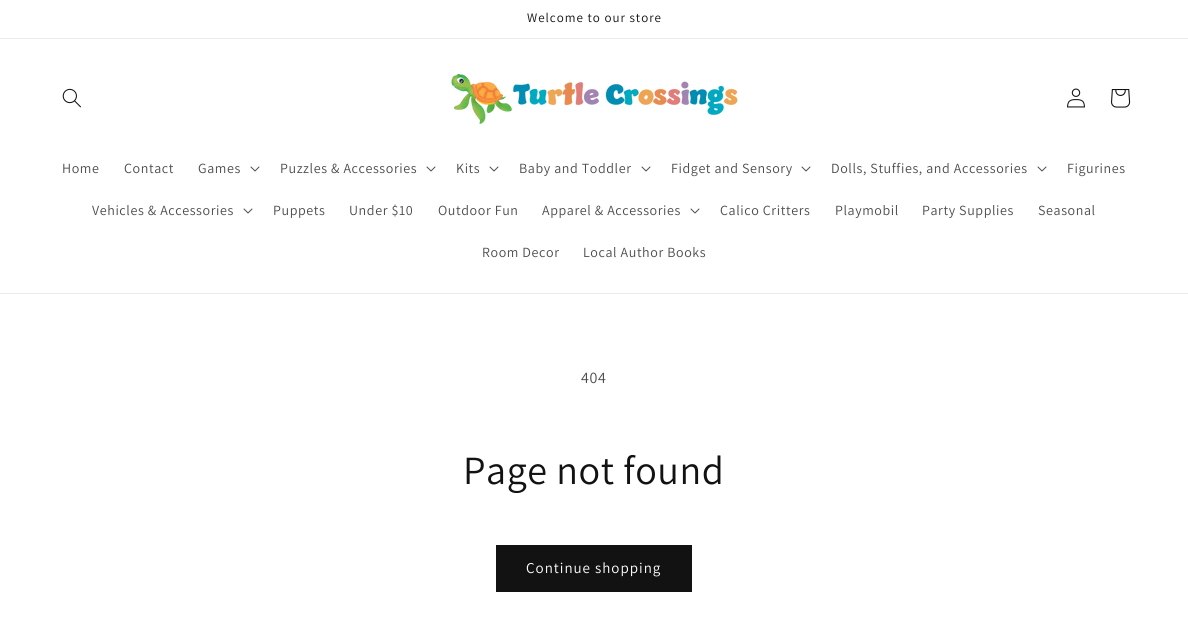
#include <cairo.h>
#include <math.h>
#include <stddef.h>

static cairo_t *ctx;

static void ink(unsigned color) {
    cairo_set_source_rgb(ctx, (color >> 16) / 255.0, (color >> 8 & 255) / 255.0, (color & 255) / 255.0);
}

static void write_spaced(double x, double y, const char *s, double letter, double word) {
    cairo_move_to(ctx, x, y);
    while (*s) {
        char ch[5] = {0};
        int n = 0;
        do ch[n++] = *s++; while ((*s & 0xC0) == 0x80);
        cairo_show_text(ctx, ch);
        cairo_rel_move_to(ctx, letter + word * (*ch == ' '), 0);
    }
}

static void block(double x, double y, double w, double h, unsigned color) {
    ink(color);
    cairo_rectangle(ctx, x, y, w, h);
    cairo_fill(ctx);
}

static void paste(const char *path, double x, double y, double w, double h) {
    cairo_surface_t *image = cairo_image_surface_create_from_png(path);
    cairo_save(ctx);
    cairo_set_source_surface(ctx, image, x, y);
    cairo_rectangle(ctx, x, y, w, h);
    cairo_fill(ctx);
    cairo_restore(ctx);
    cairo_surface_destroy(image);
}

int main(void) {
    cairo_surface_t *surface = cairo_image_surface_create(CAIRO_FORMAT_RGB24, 1188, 642);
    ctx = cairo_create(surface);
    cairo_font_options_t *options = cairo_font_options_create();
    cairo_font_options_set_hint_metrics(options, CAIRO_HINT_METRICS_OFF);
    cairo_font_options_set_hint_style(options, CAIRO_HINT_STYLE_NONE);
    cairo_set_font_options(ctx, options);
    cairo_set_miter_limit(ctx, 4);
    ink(0xffffff);
    cairo_paint(ctx);
    block(0, 38, 1188, 1, 0xececec);
    cairo_select_font_face(ctx, "Assistant", CAIRO_FONT_SLANT_NORMAL, CAIRO_FONT_WEIGHT_NORMAL);
    cairo_set_font_size(ctx, 13);
    ink(0x121212);
    write_spaced(527, 22, "Welcome to our store", 1, 0);
    block(0, 293, 1188, 1, 0xececec);
    paste("pic1.png", 62, 88, 19, 20);
    paste("pic2.png", 451, 74, 287, 50);
    paste("pic3.png", 1067, 88, 18, 20);
    paste("pic4.png", 1111, 89, 20, 19);
    cairo_set_font_size(ctx, 14);
    ink(0x4d4d4d);
    write_spaced(62, 173, "Home", 0.6, 0);
    write_spaced(124, 173, "Contact", 0.6, 0);
    write_spaced(198, 173, "Games", 0.6, 0);
    paste("pic5.png", 250, 166, 10, 6);
    write_spaced(280, 173, "Puzzles & Accessories", 0.6, 0);
    paste("pic5.png", 426, 166, 10, 6);
    write_spaced(456, 173, "Kits", 0.6, 0);
    paste("pic5.png", 489, 166, 10, 6);
    write_spaced(519, 173, "Baby and Toddler", 0.6, 0);
    paste("pic5.png", 641, 166, 10, 6);
    write_spaced(671, 173, "Fidget and Sensory", 0.6, 0);
    paste("pic5.png", 801, 166, 10, 6);
    write_spaced(831, 173, "Dolls, Stuffies, and Accessories", 0.6, 0);
    paste("pic5.png", 1037, 166, 10, 6);
    write_spaced(1067, 173, "Figurines", 0.6, 0);
    write_spaced(92, 215, "Vehicles & Accessories", 0.6, 0);
    paste("pic5.png", 243, 208, 10, 6);
    write_spaced(273, 215, "Puppets", 0.6, 0);
    write_spaced(349, 215, "Under $10", 0.6, 0);
    write_spaced(438, 215, "Outdoor Fun", 0.6, 0);
    write_spaced(542, 215, "Apparel & Accessories", 0.6, 0);
    paste("pic5.png", 690, 208, 10, 6);
    write_spaced(720, 215, "Calico Critters", 0.6, 0);
    write_spaced(835, 215, "Playmobil", 0.6, 0);
    write_spaced(922, 215, "Party Supplies", 0.6, 0);
    write_spaced(1038, 215, "Seasonal", 0.6, 0);
    write_spaced(482, 257, "Room Decor", 0.6, 0);
    write_spaced(583, 257, "Local Author Books", 0.6, 0);
    cairo_set_font_size(ctx, 16);
    write_spaced(581, 383, "404", 0.6, 0);
    cairo_set_font_size(ctx, 40);
    ink(0x121212);
    write_spaced(463, 484, "Page not found", 0.6, 0);
    block(496, 545, 196, 47, 0x121212);
    cairo_set_font_size(ctx, 15);
    ink(0xffffff);
    write_spaced(526, 573, "Continue shopping", 1, 0);
    cairo_surface_write_to_png(surface, "screenshot.png");
    cairo_font_options_destroy(options);
    cairo_destroy(ctx);
    cairo_surface_destroy(surface);
    return 0;
}
